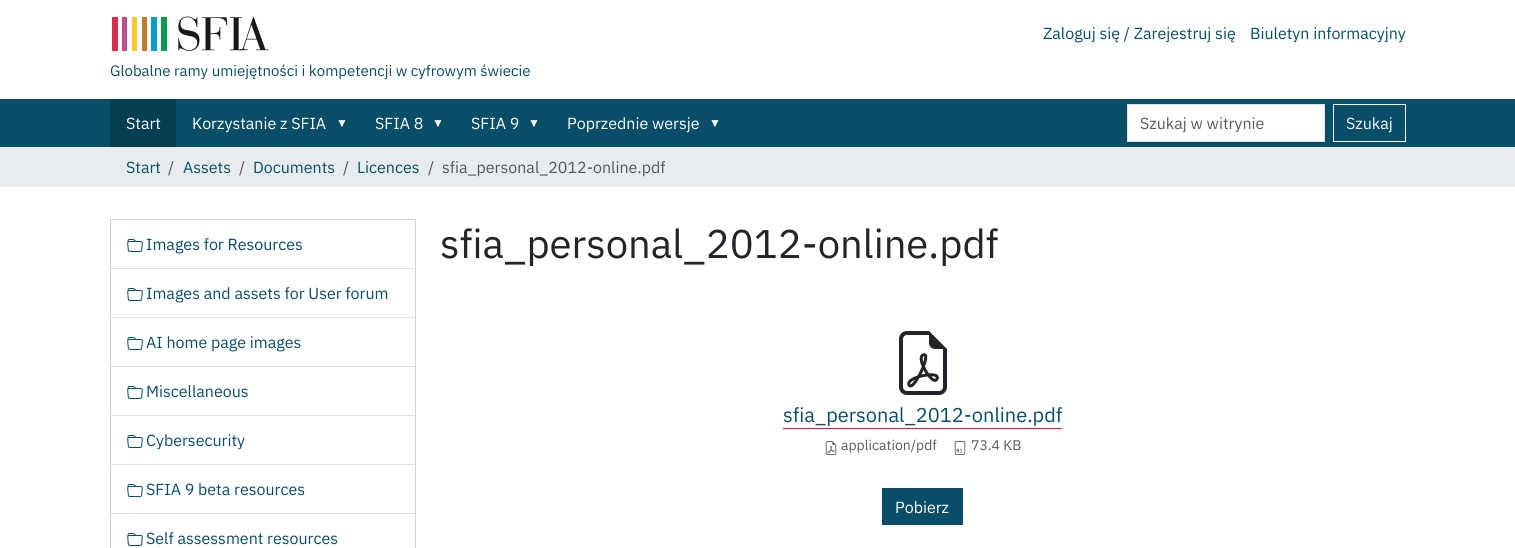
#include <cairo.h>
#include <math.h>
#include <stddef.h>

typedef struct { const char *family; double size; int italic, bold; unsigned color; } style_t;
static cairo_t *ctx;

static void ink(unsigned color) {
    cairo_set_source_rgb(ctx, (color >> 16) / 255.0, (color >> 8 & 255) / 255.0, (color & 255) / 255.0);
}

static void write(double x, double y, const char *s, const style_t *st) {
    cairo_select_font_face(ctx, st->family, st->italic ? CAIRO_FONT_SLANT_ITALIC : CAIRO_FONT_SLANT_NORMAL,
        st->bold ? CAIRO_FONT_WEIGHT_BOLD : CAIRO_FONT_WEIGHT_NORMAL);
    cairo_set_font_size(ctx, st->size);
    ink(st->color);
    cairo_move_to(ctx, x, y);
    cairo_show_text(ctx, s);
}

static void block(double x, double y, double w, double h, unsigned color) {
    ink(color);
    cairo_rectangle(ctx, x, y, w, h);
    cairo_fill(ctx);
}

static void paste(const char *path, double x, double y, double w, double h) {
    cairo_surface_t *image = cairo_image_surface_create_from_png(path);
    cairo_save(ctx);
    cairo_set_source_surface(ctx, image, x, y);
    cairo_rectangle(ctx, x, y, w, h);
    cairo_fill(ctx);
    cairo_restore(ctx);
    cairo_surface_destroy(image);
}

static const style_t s1 = {"IBM Plex Sans", 16, 0, 0, 0x084e68};
static const style_t s2 = {"IBM Plex Sans", 15, 0, 0, 0x084e68};
static const style_t s3 = {"IBM Plex Sans", 16, 0, 0, 0xffffff};
static const style_t s4 = {"Liberation Sans", 12, 0, 0, 0xffffff};
static const style_t s5 = {"IBM Plex Sans", 16, 0, 0, 0x595c5f};
static const style_t s6 = {"IBM Plex Sans", 16, 0, 0, 0xf8f9fa};
static const style_t s7 = {"IBM Plex Sans", 16, 0, 0, 0x53575b};
static const style_t s8 = {"IBM Plex Sans", 40, 0, 0, 0x212529};
static const style_t s9 = {"IBM Plex Sans", 20, 0, 0, 0x084e68};
static const style_t s10 = {"IBM Plex Sans", 14, 0, 0, 0x595c5f};

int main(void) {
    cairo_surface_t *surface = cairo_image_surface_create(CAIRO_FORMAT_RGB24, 1515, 548);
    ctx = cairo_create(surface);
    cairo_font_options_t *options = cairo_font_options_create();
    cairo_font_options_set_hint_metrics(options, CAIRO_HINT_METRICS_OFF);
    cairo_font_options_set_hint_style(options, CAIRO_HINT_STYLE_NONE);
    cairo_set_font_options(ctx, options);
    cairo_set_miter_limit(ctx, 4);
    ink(0xffffff);
    cairo_paint(ctx);
    write(1043, 39, "Zaloguj się / Zarejestruj się", &s1);
    write(1250, 39, "Biuletyn informacyjny", &s1);
    paste("pic1.png", 112, 16, 157, 35);
    write(110, 76, "Globalne ramy umiejętności i kompetencji w cyfrowym świecie", &s2);
    block(0, 99, 1515, 48, 0x084e68);
    block(110, 99, 66, 48, 0x063e53);
    write(126, 129, "Start", &s3);
    write(192, 129, "Korzystanie z SFIA", &s3);
    write(336, 127, "▼", &s4);
    write(375, 129, "SFIA 8", &s3);
    write(432, 127, "▼", &s4);
    write(471, 129, "SFIA 9", &s3);
    write(528, 127, "▼", &s4);
    write(567, 129, "Poprzednie wersje", &s3);
    write(709, 127, "▼", &s4);
    cairo_rectangle(ctx, 1127.5, 104.5, 197, 37);
    cairo_fill_preserve(ctx);
    ink(0xdee2e6);
    cairo_set_line_width(ctx, 1);
    cairo_stroke(ctx);
    write(1140, 129, "Szukaj w witrynie", &s5);
    cairo_rectangle(ctx, 1333.5, 104.5, 72, 37);
    ink(0xf8f9fa);
    cairo_stroke(ctx);
    write(1346, 129, "Szukaj", &s6);
    block(0, 147, 1515, 40, 0xe9ecef);
    write(126, 173, "Start", &s1);
    write(168, 173, "/", &s7);
    write(183, 173, "Assets", &s1);
    write(239, 173, "/", &s7);
    write(253, 173, "Documents", &s1);
    write(343, 173, "/", &s7);
    write(357, 173, "Licences", &s1);
    write(428, 173, "/", &s7);
    write(442, 173, "sfia_personal_2012-online.pdf", &s7);
    cairo_rectangle(ctx, 110.5, 219.5, 305, 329);
    ink(0xd2d2d2);
    cairo_stroke(ctx);
    paste("pic2.png", 127, 239, 16, 13);
    write(146, 250, "Images for Resources", &s1);
    block(111, 268, 304, 1, 0xdee2e6);
    paste("pic2.png", 127, 288, 16, 13);
    write(146, 299, "Images and assets for User forum", &s1);
    block(111, 317, 304, 1, 0xdee2e6);
    paste("pic2.png", 127, 337, 16, 13);
    write(146, 348, "AI home page images", &s1);
    block(111, 366, 304, 1, 0xdee2e6);
    paste("pic2.png", 127, 386, 16, 13);
    write(146, 397, "Miscellaneous", &s1);
    block(111, 415, 304, 1, 0xdee2e6);
    paste("pic2.png", 127, 435, 16, 13);
    write(146, 446, "Cybersecurity", &s1);
    block(111, 464, 304, 1, 0xdee2e6);
    paste("pic2.png", 127, 484, 16, 13);
    write(146, 495, "SFIA 9 beta resources", &s1);
    block(111, 513, 304, 1, 0xdee2e6);
    paste("pic2.png", 127, 533, 16, 13);
    write(146, 544, "Self assessment resources", &s1);
    write(440, 258, "sfia_personal_2012-online.pdf", &s8);
    paste("pic3.png", 899, 331, 48, 64);
    write(783, 422, "sfia_personal_2012-online.pdf", &s9);
    block(783, 428, 279, 1, 0xd8133d);
    paste("pic4.png", 825, 441, 12, 14);
    write(841, 450, "application/pdf", &s10);
    paste("pic5.png", 954, 441, 12, 14);
    write(971, 450, "73.4 KB", &s10);
    block(882, 488, 81, 37, 0x084e68);
    write(895, 513, "Pobierz", &s3);
    cairo_surface_write_to_png(surface, "screenshot.png");
    cairo_font_options_destroy(options);
    cairo_destroy(ctx);
    cairo_surface_destroy(surface);
    return 0;
}
